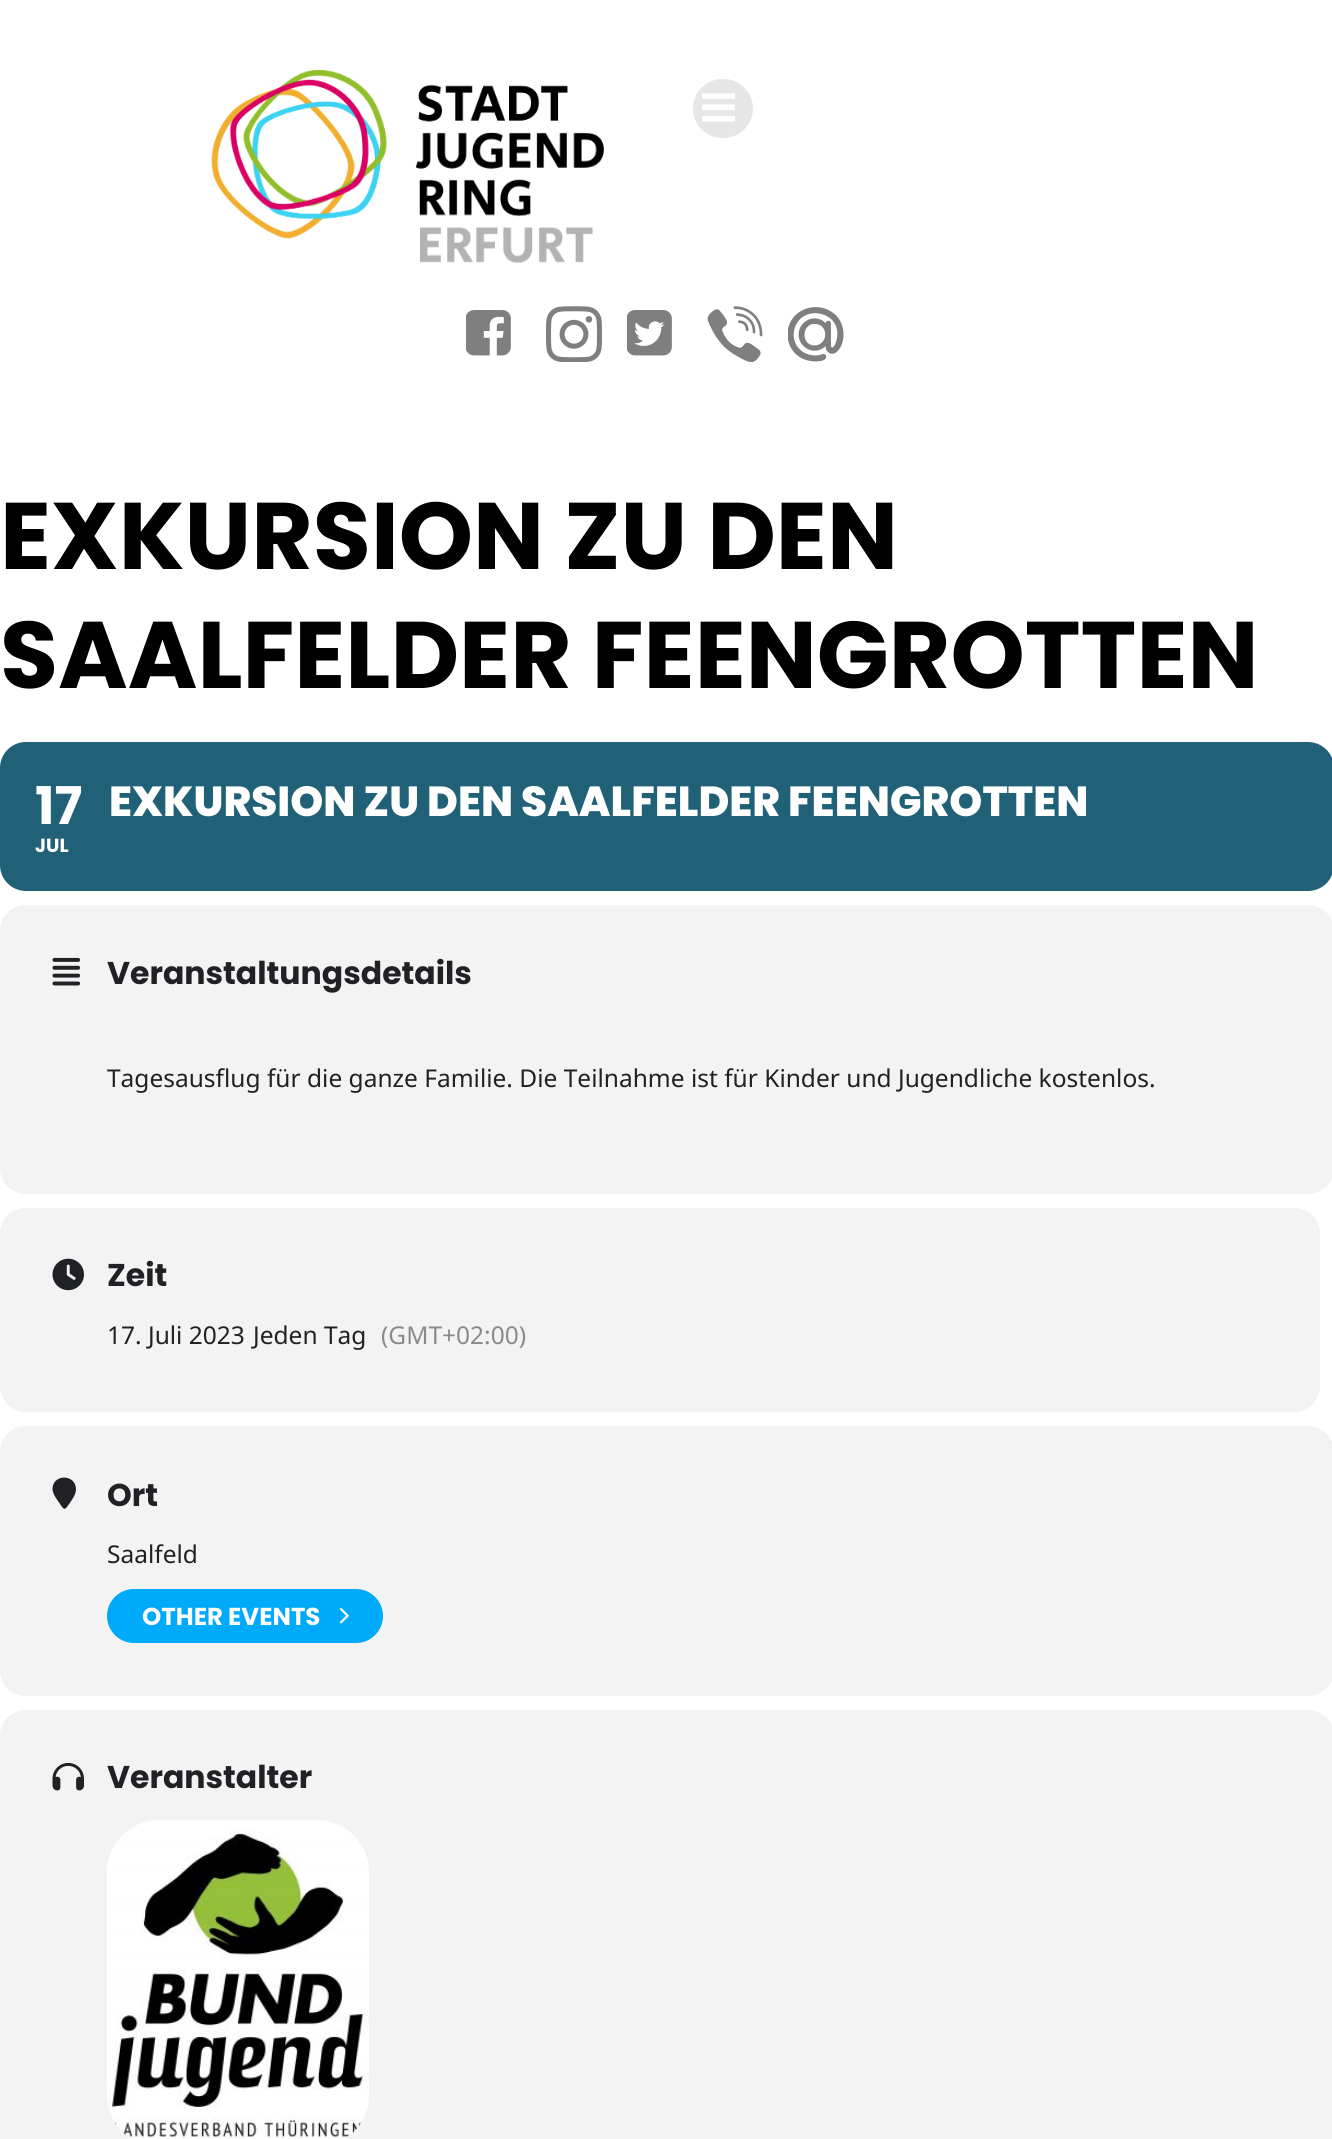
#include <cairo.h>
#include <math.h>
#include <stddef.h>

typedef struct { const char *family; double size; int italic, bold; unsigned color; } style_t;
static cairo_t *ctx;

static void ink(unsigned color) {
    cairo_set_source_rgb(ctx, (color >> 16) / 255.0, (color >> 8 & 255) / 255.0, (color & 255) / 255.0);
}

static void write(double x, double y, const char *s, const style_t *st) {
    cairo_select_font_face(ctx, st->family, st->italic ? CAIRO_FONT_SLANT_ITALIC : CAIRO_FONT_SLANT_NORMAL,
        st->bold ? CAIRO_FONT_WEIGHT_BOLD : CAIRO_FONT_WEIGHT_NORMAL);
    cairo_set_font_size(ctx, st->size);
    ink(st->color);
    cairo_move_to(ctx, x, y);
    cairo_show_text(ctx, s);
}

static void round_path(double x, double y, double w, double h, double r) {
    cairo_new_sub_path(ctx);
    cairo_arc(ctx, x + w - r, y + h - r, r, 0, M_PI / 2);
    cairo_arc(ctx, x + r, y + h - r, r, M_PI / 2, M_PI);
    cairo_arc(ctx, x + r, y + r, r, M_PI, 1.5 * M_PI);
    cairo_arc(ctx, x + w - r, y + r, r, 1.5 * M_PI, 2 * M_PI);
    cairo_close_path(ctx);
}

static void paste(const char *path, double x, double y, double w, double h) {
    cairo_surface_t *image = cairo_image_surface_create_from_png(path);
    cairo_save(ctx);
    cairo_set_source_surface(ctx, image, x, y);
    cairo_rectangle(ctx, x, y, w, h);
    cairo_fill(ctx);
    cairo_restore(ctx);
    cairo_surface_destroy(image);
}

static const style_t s1 = {"Poppins", 94.5, 0, 1, 0x000000};
static const style_t s2 = {"Poppins", 52, 0, 1, 0xffffff};
static const style_t s3 = {"Poppins", 19, 0, 1, 0xffffff};
static const style_t s4 = {"Poppins ExtraBold", 42, 0, 0, 0xffffff};
static const style_t s5 = {"Poppins", 31.5, 0, 1, 0x202124};
static const style_t s6 = {"Noto Sans", 24.5, 0, 0, 0x202124};
static const style_t s7 = {"Noto Sans", 24.5, 0, 0, 0x8a8a8c};
static const style_t s8 = {"Poppins", 24.5, 0, 1, 0xffffff};

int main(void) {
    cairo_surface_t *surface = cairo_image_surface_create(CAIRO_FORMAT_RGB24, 1332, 2139);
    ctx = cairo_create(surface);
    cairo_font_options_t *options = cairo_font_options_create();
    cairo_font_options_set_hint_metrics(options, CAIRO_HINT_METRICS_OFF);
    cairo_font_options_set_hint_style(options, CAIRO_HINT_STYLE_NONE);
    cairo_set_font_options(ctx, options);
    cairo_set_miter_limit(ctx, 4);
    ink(0xffffff);
    cairo_paint(ctx);
    paste("pic1.png", 211, 70, 393, 193);
    ink(0xe6e6e6);
    round_path(693, 79, 60, 59, 29.5);
    cairo_fill(ctx);
    paste("pic2.png", 702, 93, 33, 29);
    paste("pic3.png", 466, 310, 45, 46);
    paste("pic4.png", 546, 306, 56, 56);
    paste("pic5.png", 627, 310, 45, 46);
    paste("pic6.png", 707, 306, 56, 56);
    paste("pic7.png", 788, 307, 56, 55);
    write(0, 569, "EXKURSION ZU DEN", &s1);
    write(0, 688, "SAALFELDER FEENGROTTEN", &s1);
    ink(0x206177);
    round_path(0, 742, 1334, 149, 26);
    cairo_fill(ctx);
    write(35, 824, "17", &s2);
    write(35, 852, "JUL", &s3);
    write(109, 816, "EXKURSION ZU DEN SAALFELDER FEENGROTTEN", &s4);
    ink(0xf3f3f3);
    round_path(0, 905, 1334, 289, 26);
    cairo_fill(ctx);
    paste("pic8.png", 52, 957, 29, 29);
    write(107, 984, "Veranstaltungsdetails", &s5);
    write(107, 1087, "Tagesausflug für die ganze Familie. Die Teilnahme ist für Kinder und Jugendliche kostenlos.", &s6);
    ink(0xf3f3f3);
    round_path(0, 1208, 1320, 204, 26);
    cairo_fill(ctx);
    paste("pic9.png", 52, 1258, 32, 33);
    write(107, 1286, "Zeit", &s5);
    write(107, 1344, "17. Juli 2023", &s6);
    write(253, 1344, "Jeden Tag", &s6);
    write(381, 1344, "(GMT+02:00)", &s7);
    ink(0xf3f3f3);
    round_path(0, 1426, 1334, 270, 26);
    cairo_fill(ctx);
    ink(0x202124);
    cairo_new_path(ctx);
    cairo_move_to(ctx, 76, 1489);
    cairo_curve_to(ctx, 76, 1494, 73, 1498, 70.5, 1502);
    cairo_curve_to(ctx, 64.5, 1510.5, 65, 1511.5, 59, 1502.5);
    cairo_curve_to(ctx, 56.5, 1499, 52.5, 1493.5, 52.5, 1489);
    cairo_curve_to(ctx, 52.5, 1474, 75.5, 1473.5, 76, 1489);
    cairo_close_path(ctx);
    cairo_fill(ctx);
    write(107, 1506, "Ort", &s5);
    write(107, 1563, "Saalfeld", &s6);
    ink(0x00aafb);
    round_path(107, 1589, 276, 54, 27);
    cairo_fill(ctx);
    write(142, 1625, "OTHER EVENTS", &s8);
    paste("pic10.png", 340, 1608, 9, 16);
    ink(0xf3f3f3);
    round_path(0, 1710, 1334, 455, 26);
    cairo_fill(ctx);
    paste("pic11.png", 52, 1762, 32, 29);
    write(107, 1788, "Veranstalter", &s5);
    paste("pic12.png", 107, 1820, 262, 319);
    cairo_surface_write_to_png(surface, "screenshot.png");
    cairo_font_options_destroy(options);
    cairo_destroy(ctx);
    cairo_surface_destroy(surface);
    return 0;
}
